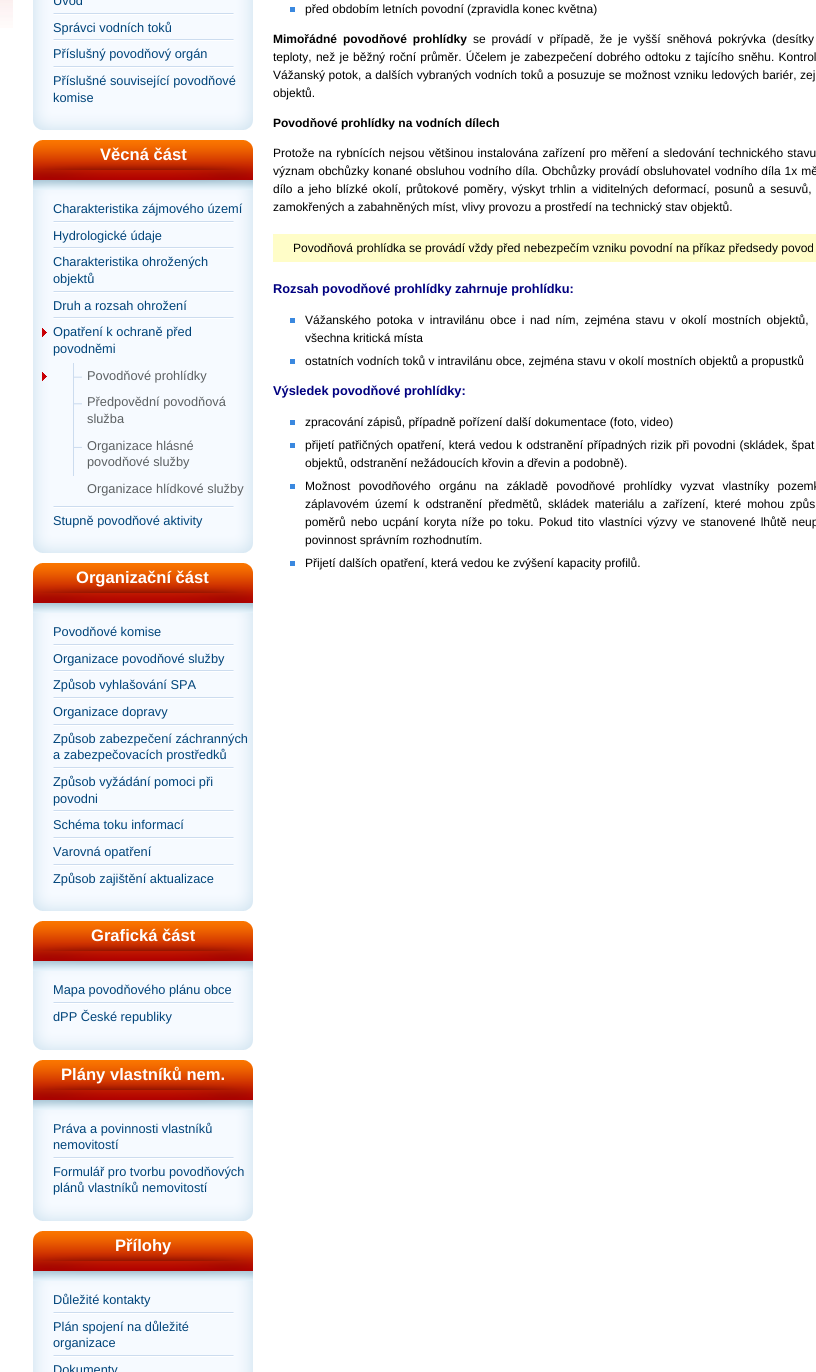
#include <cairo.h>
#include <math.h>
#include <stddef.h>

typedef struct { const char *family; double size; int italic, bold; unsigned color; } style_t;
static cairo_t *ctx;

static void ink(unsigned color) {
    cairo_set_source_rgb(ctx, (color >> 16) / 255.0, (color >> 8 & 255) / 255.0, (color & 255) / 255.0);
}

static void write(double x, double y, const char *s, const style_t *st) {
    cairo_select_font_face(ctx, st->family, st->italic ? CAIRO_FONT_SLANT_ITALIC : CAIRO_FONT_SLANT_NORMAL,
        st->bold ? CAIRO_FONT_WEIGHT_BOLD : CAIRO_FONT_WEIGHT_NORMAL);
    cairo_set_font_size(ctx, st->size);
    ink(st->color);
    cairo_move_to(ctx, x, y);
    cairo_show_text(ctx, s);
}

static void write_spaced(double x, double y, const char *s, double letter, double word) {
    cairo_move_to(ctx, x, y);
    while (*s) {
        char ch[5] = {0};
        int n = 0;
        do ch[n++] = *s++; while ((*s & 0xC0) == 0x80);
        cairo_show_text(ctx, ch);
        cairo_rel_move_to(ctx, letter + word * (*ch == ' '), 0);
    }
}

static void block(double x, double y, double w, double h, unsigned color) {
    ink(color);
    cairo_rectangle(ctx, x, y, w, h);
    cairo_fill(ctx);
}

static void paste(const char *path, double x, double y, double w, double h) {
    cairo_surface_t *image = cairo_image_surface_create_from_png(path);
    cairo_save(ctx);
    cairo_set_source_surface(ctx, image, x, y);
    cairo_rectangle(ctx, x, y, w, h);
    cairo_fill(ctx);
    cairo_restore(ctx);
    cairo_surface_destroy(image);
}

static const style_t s1 = {"Liberation Sans", 12.8, 0, 0, 0x00447a};
static const style_t s2 = {"Liberation Sans", 16.6, 0, 1, 0xffffff};
static const style_t s3 = {"Liberation Sans", 12.8, 0, 0, 0x5c6062};
static const style_t s4 = {"Liberation Sans", 12, 0, 0, 0x000000};
static const style_t s5 = {"Liberation Sans", 12, 0, 1, 0x000000};
static const style_t s6 = {"Liberation Sans", 12.8, 0, 1, 0x000080};

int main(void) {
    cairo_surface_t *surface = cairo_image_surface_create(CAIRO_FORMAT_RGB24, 816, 1372);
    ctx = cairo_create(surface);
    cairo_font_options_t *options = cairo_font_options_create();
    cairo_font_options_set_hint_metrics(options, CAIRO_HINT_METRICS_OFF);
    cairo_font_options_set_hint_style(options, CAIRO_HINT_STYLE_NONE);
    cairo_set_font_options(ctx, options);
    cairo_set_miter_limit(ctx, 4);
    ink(0xffffff);
    cairo_paint(ctx);
    paste("pic1.png", 0, 0, 13, 28);
    paste("pic2.png", 33, 0, 220, 111);
    paste("pic3.png", 53, 13, 181, 2);
    write(53, 5, "Úvod", &s1);
    paste("pic3.png", 53, 39, 181, 2);
    write(53, 32, "Správci vodních toků", &s1);
    paste("pic3.png", 53, 66, 181, 2);
    write(53, 58, "Příslušný povodňový orgán", &s1);
    write(53, 85, "Příslušné související povodňové", &s1);
    write(53, 102, "komise", &s1);
    paste("pic4.png", 33, 111, 220, 19);
    paste("pic5.png", 33, 140, 220, 40);
    write(100, 160, "Věcná část", &s2);
    paste("pic6.png", 33, 180, 220, 16);
    paste("pic7.png", 33, 196, 220, 338);
    paste("pic3.png", 53, 221, 181, 2);
    write(53, 213, "Charakteristika zájmového území", &s1);
    paste("pic3.png", 53, 247, 181, 2);
    write(53, 240, "Hydrologické údaje", &s1);
    paste("pic3.png", 53, 291, 181, 2);
    write(53, 266, "Charakteristika ohrožených", &s1);
    write(53, 283, "objektů", &s1);
    paste("pic3.png", 53, 317, 181, 2);
    write(53, 310, "Druh a rozsah ohrožení", &s1);
    paste("pic3.png", 53, 506, 181, 2);
    paste("pic8.png", 42, 328, 5, 9);
    write(53, 336, "Opatření k ochraně před", &s1);
    write(53, 353, "povodněmi", &s1);
    paste("pic9.png", 73, 363, 9, 26);
    paste("pic8.png", 42, 372, 5, 9);
    write(87, 380, "Povodňové prohlídky", &s3);
    paste("pic10.png", 73, 389, 9, 44);
    write(87, 406, "Předpovědní povodňová", &s3);
    write(87, 423, "služba", &s3);
    paste("pic11.png", 73, 433, 9, 43);
    write(87, 450, "Organizace hlásné", &s3);
    write(87, 466, "povodňové služby", &s3);
    write(87, 493, "Organizace hlídkové služby", &s3);
    write(53, 525, "Stupně povodňové aktivity", &s1);
    paste("pic4.png", 33, 534, 220, 19);
    paste("pic5.png", 33, 563, 220, 40);
    write(76, 583, "Organizační část", &s2);
    paste("pic6.png", 33, 603, 220, 16);
    paste("pic12.png", 33, 619, 220, 273);
    paste("pic3.png", 53, 644, 181, 2);
    write(53, 636, "Povodňové komise", &s1);
    paste("pic3.png", 53, 670, 181, 2);
    write(53, 663, "Organizace povodňové služby", &s1);
    paste("pic3.png", 53, 697, 181, 2);
    write(53, 689, "Způsob vyhlašování SPA", &s1);
    paste("pic3.png", 53, 724, 181, 2);
    write(53, 716, "Organizace dopravy", &s1);
    paste("pic3.png", 53, 767, 181, 2);
    write(53, 743, "Způsob zabezpečení záchranných", &s1);
    write(53, 759, "a zabezpečovacích prostředků", &s1);
    paste("pic3.png", 53, 810, 181, 2);
    write(53, 786, "Způsob vyžádání pomoci při", &s1);
    write(53, 803, "povodni", &s1);
    paste("pic3.png", 53, 837, 181, 2);
    write(53, 829, "Schéma toku informací", &s1);
    paste("pic3.png", 53, 864, 181, 2);
    write(53, 856, "Varovná opatření", &s1);
    write(53, 883, "Způsob zajištění aktualizace", &s1);
    paste("pic4.png", 33, 892, 220, 19);
    paste("pic5.png", 33, 921, 220, 40);
    write(91, 941, "Grafická část", &s2);
    paste("pic6.png", 33, 961, 220, 16);
    paste("pic13.png", 33, 977, 220, 54);
    paste("pic3.png", 53, 1002, 181, 2);
    write(53, 994, "Mapa povodňového plánu obce", &s1);
    write(53, 1021, "dPP České republiky", &s1);
    paste("pic4.png", 33, 1031, 220, 19);
    paste("pic5.png", 33, 1060, 220, 40);
    write(61, 1080, "Plány vlastníků nem.", &s2);
    paste("pic6.png", 33, 1100, 220, 16);
    paste("pic14.png", 33, 1116, 220, 86);
    paste("pic3.png", 53, 1157, 181, 2);
    write(53, 1133, "Práva a povinnosti vlastníků", &s1);
    write(53, 1149, "nemovitostí", &s1);
    write(53, 1176, "Formulář pro tvorbu povodňových", &s1);
    write(53, 1192, "plánů vlastníků nemovitostí", &s1);
    paste("pic4.png", 33, 1202, 220, 19);
    paste("pic5.png", 33, 1231, 220, 40);
    write(115, 1251, "Přílohy", &s2);
    paste("pic6.png", 33, 1271, 220, 16);
    paste("pic15.png", 33, 1287, 220, 85);
    paste("pic3.png", 53, 1312, 181, 2);
    write(53, 1304, "Důležité kontakty", &s1);
    paste("pic3.png", 53, 1355, 181, 2);
    write(53, 1331, "Plán spojení na důležité", &s1);
    write(53, 1347, "organizace", &s1);
    write(53, 1374, "Dokumenty", &s1);
    block(290, 7, 5, 5, 0x3a88df);
    write(305, 13, "před obdobím letních povodní (zpravidla konec května)", &s4);
    cairo_select_font_face(ctx, "Liberation Sans", CAIRO_FONT_SLANT_NORMAL, CAIRO_FONT_WEIGHT_BOLD);
    write_spaced(273, 43, "Mimořádné povodňové prohlídky", 0, 2.6);
    cairo_select_font_face(ctx, "Liberation Sans", CAIRO_FONT_SLANT_NORMAL, CAIRO_FONT_WEIGHT_NORMAL);
    write_spaced(473, 43, "se provádí v případě, že je vyšší sněhová pokrývka (desítky", 0, 2.6);
    write_spaced(273, 61, "teploty, než je běžný roční průměr. Účelem je zabezpečení dobrého odtoku z tajícího sněhu. Kontrol", 0, 0.9);
    write_spaced(273, 79, "Vážanský potok, a dalších vybraných vodních toků a posuzuje se možnost vzniku ledových bariér, zej", 0, 0.25);
    write(273, 97, "objektů.", &s4);
    write(273, 127, "Povodňové prohlídky na vodních dílech", &s5);
    cairo_select_font_face(ctx, "Liberation Sans", CAIRO_FONT_SLANT_NORMAL, CAIRO_FONT_WEIGHT_NORMAL);
    write_spaced(273, 157, "Protože na rybnících nejsou většinou instalována zařízení pro měření a sledování technického stavu", 0, 0.9);
    write_spaced(273, 175, "význam obchůzky konané obsluhou vodního díla. Obchůzky provádí obsluhovatel vodního díla 1x mě", 0, 0.6);
    write_spaced(273, 193, "dílo a jeho blízké okolí, průtokové poměry, výskyt trhlin a viditelných deformací, posunů a sesuvů,", 0, 1.5);
    write(273, 211, "zamokřených a zabahněných míst, vlivy provozu a prostředí na technický stav objektů.", &s4);
    block(273, 234, 543, 28, 0xfffdc8);
    write(293, 252, "Povodňová prohlídka se provádí vždy před nebezpečím vzniku povodní na příkaz předsedy povod", &s4);
    write(273, 293, "Rozsah povodňové prohlídky zahrnuje prohlídku:", &s6);
    block(290, 318, 5, 5, 0x3a88df);
    cairo_select_font_face(ctx, "Liberation Sans", CAIRO_FONT_SLANT_NORMAL, CAIRO_FONT_WEIGHT_NORMAL);
    cairo_set_font_size(ctx, 12);
    ink(0x000000);
    write_spaced(305, 324, "Vážanského potoka v intravilánu obce i nad ním, zejména stavu v okolí mostních objektů,", 0, 2.25);
    write(305, 342, "všechna kritická místa", &s4);
    block(290, 359, 5, 5, 0x3a88df);
    write(305, 365, "ostatních vodních toků v intravilánu obce, zejména stavu v okolí mostních objektů a propustků", &s4);
    write(273, 395, "Výsledek povodňové prohlídky:", &s6);
    block(290, 420, 5, 5, 0x3a88df);
    write(305, 426, "zpracování zápisů, případně pořízení další dokumentace (foto, video)", &s4);
    block(290, 443, 5, 5, 0x3a88df);
    ink(0x000000);
    write_spaced(305, 449, "přijetí patřičných opatření, která vedou k odstranění případných rizik při povodni (skládek, špat", 0, 0.75);
    write(305, 467, "objektů, odstranění nežádoucích křovin a dřevin a podobně).", &s4);
    block(290, 484, 5, 5, 0x3a88df);
    ink(0x000000);
    write_spaced(305, 490, "Možnost povodňového orgánu na základě povodňové prohlídky vyzvat vlastníky pozemk", 0, 5);
    write_spaced(305, 508, "záplavovém území k odstranění předmětů, skládek materiálu a zařízení, které mohou způs", 0, 2.6);
    write_spaced(305, 526, "poměrů nebo ucpání koryta níže po toku. Pokud tito vlastníci výzvy ve stanovené lhůtě neup", 0, 1.75);
    write(305, 544, "povinnost správním rozhodnutím.", &s4);
    block(290, 561, 5, 5, 0x3a88df);
    write(305, 567, "Přijetí dalších opatření, která vedou ke zvýšení kapacity profilů.", &s4);
    cairo_surface_write_to_png(surface, "screenshot.png");
    cairo_font_options_destroy(options);
    cairo_destroy(ctx);
    cairo_surface_destroy(surface);
    return 0;
}
